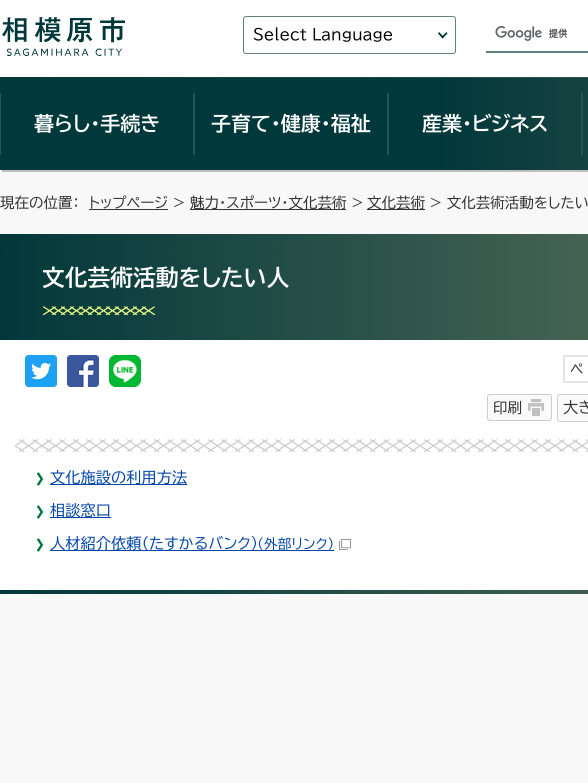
#include <cairo.h>
#include <math.h>
#include <stddef.h>

typedef struct { const char *family; double size; int italic, bold; unsigned color; } style_t;
static cairo_t *ctx;

static void ink(unsigned color) {
    cairo_set_source_rgb(ctx, (color >> 16) / 255.0, (color >> 8 & 255) / 255.0, (color & 255) / 255.0);
}

static void write(double x, double y, const char *s, const style_t *st) {
    cairo_select_font_face(ctx, st->family, st->italic ? CAIRO_FONT_SLANT_ITALIC : CAIRO_FONT_SLANT_NORMAL,
        st->bold ? CAIRO_FONT_WEIGHT_BOLD : CAIRO_FONT_WEIGHT_NORMAL);
    cairo_set_font_size(ctx, st->size);
    ink(st->color);
    cairo_move_to(ctx, x, y);
    cairo_show_text(ctx, s);
}

static void block(double x, double y, double w, double h, unsigned color) {
    ink(color);
    cairo_rectangle(ctx, x, y, w, h);
    cairo_fill(ctx);
}

static void round_path(double x, double y, double w, double h, double r) {
    cairo_new_sub_path(ctx);
    cairo_arc(ctx, x + w - r, y + h - r, r, 0, M_PI / 2);
    cairo_arc(ctx, x + r, y + h - r, r, M_PI / 2, M_PI);
    cairo_arc(ctx, x + r, y + r, r, M_PI, 1.5 * M_PI);
    cairo_arc(ctx, x + w - r, y + r, r, 1.5 * M_PI, 2 * M_PI);
    cairo_close_path(ctx);
}

static void paste(const char *path, double x, double y, double w, double h) {
    cairo_surface_t *image = cairo_image_surface_create_from_png(path);
    cairo_save(ctx);
    cairo_set_source_surface(ctx, image, x, y);
    cairo_rectangle(ctx, x, y, w, h);
    cairo_fill(ctx);
    cairo_restore(ctx);
    cairo_surface_destroy(image);
}

static const style_t s1 = {"BIZ UDPGothic", 15.25, 0, 0, 0x000000};
static const style_t s2 = {"BIZ UDPGothic", 20, 0, 1, 0xffffff};
static const style_t s3 = {"BIZ UDPGothic", 14.5, 0, 0, 0x333333};
static const style_t s4 = {"BIZ UDPGothic", 22.75, 0, 1, 0xffffff};
static const style_t s5 = {"BIZ UDPGothic", 14, 0, 0, 0x333333};
static const style_t s6 = {"BIZ UDPGothic", 15.25, 0, 0, 0x333333};
static const style_t s7 = {"BIZ UDPGothic", 15.25, 0, 0, 0x0547a9};
static const style_t s8 = {"BIZ UDPGothic", 13.75, 0, 0, 0x0547a9};

int main(void) {
    cairo_surface_t *surface = cairo_image_surface_create(CAIRO_FORMAT_RGB24, 588, 783);
    ctx = cairo_create(surface);
    cairo_font_options_t *options = cairo_font_options_create();
    cairo_font_options_set_hint_metrics(options, CAIRO_HINT_METRICS_OFF);
    cairo_font_options_set_hint_style(options, CAIRO_HINT_STYLE_NONE);
    cairo_set_font_options(ctx, options);
    cairo_set_miter_limit(ctx, 4);
    cairo_pattern_t *gradient;
    ink(0xffffff);
    cairo_paint(ctx);
    paste("pic1.png", 0, 77, 588, 1);
    paste("pic2.png", 2, 17, 123, 39);
    round_path(243.5, 16.5, 212, 37, 2.5);
    ink(0x608283);
    cairo_set_line_width(ctx, 1);
    cairo_stroke(ctx);
    write(253, 40, "Select Language", &s1);
    ink(0x00373a);
    cairo_new_path(ctx);
    cairo_move_to(ctx, 447.5, 33.5);
    cairo_line_to(ctx, 442.5, 38.5);
    cairo_line_to(ctx, 441.5, 37);
    cairo_line_to(ctx, 446.5, 32);
    cairo_close_path(ctx);
    cairo_fill(ctx);
    cairo_new_path(ctx);
    cairo_move_to(ctx, 444, 37);
    cairo_line_to(ctx, 442.5, 38.5);
    cairo_line_to(ctx, 438, 33.5);
    cairo_line_to(ctx, 439, 32);
    cairo_close_path(ctx);
    cairo_fill(ctx);
    paste("pic3.png", 495, 26, 73, 15);
    block(486, 51, 102, 2, 0x608283);
    ink(0xbfbfbf);
    cairo_new_path(ctx);
    cairo_move_to(ctx, 2, 170);
    cairo_line_to(ctx, 2, 172);
    cairo_line_to(ctx, 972, 172);
    cairo_line_to(ctx, 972, 80);
    cairo_line_to(ctx, 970, 80);
    cairo_line_to(ctx, 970, 170);
    cairo_close_path(ctx);
    cairo_fill(ctx);
    gradient = cairo_pattern_create_linear(0, 124, 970, 124);
    cairo_pattern_add_color_stop_rgba(gradient, 0.45, 0.004, 0.22, 0.231, 1);
    cairo_pattern_add_color_stop_rgba(gradient, 1, 0.294, 0.365, 0.318, 1);
    cairo_set_source(ctx, gradient);
    cairo_pattern_destroy(gradient);
    cairo_rectangle(ctx, 0, 78, 588, 92);
    cairo_fill(ctx);
    block(0, 93, 1, 62, 0x1b585b);
    write(34, 131, "暮らし・手続き", &s2);
    block(193, 93, 2, 62, 0x1b585b);
    write(211, 131, "子育て・健康・福祉", &s2);
    block(387, 93, 2, 62, 0x1b585b);
    write(422, 131, "産業・ビジネス", &s2);
    block(581, 93, 2, 62, 0x1b585b);
    block(0, 172, 588, 62, 0xf8f8f8);
    write(0, 208, "現在の位置：", &s3);
    write(89, 208, "トップページ >", &s3);
    block(89, 209, 79, 1, 0x333333);
    block(190, 209, 156, 1, 0x333333);
    write(190, 208, "魅力・スポーツ・文化芸術 >", &s3);
    block(367, 209, 58, 1, 0x333333);
    write(367, 208, "文化芸術 > 文化芸術活動をしたい", &s3);
    block(0, 594, 588, 189, 0xf8f8f8);
    paste("pic4.png", 0, 590, 588, 4);
    paste("pic5.png", 0, 234, 588, 106);
    write(42, 286, "文化芸術活動をしたい人", &s4);
    paste("pic6.png", 15, 439, 573, 13);
    paste("pic7.png", 25, 355, 32, 32);
    paste("pic8.png", 67, 355, 32, 32);
    paste("pic9.png", 109, 355, 32, 32);
    cairo_rectangle(ctx, 564, 356, 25, 26);
    ink(0xe5e5e5);
    cairo_set_line_width(ctx, 2);
    cairo_stroke(ctx);
    write(570, 374, "ペ", &s5);
    ink(0xfafafa);
    round_path(487, 394, 65, 27, 3);
    cairo_fill(ctx);
    paste("pic10.png", 528, 399, 16, 17);
    round_path(487.5, 394.5, 64, 26, 2.5);
    ink(0xcccccc);
    cairo_set_line_width(ctx, 1);
    cairo_stroke(ctx);
    write(493, 413, "印刷", &s3);
    ink(0xfafafa);
    round_path(557.5, 394.5, 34, 27, 2.5);
    cairo_fill_preserve(ctx);
    ink(0xcccccc);
    cairo_stroke(ctx);
    write(563, 413, "大き", &s6);
    paste("pic11.png", 36, 472, 8, 14);
    block(50, 484, 137, 1, 0x0547a9);
    write(50, 483, "文化施設の利用方法", &s7);
    paste("pic11.png", 36, 505, 8, 14);
    block(50, 517, 61, 1, 0x0547a9);
    write(50, 516, "相談窓口", &s7);
    paste("pic11.png", 36, 538, 8, 14);
    block(50, 550, 284, 1, 0x0547a9);
    write(50, 549, "人材紹介依頼（たすかるバンク）", &s7);
    write(257, 549, "（外部リンク）", &s8);
    paste("pic12.png", 339, 539, 12, 11);
    cairo_surface_write_to_png(surface, "screenshot.png");
    cairo_font_options_destroy(options);
    cairo_destroy(ctx);
    cairo_surface_destroy(surface);
    return 0;
}
